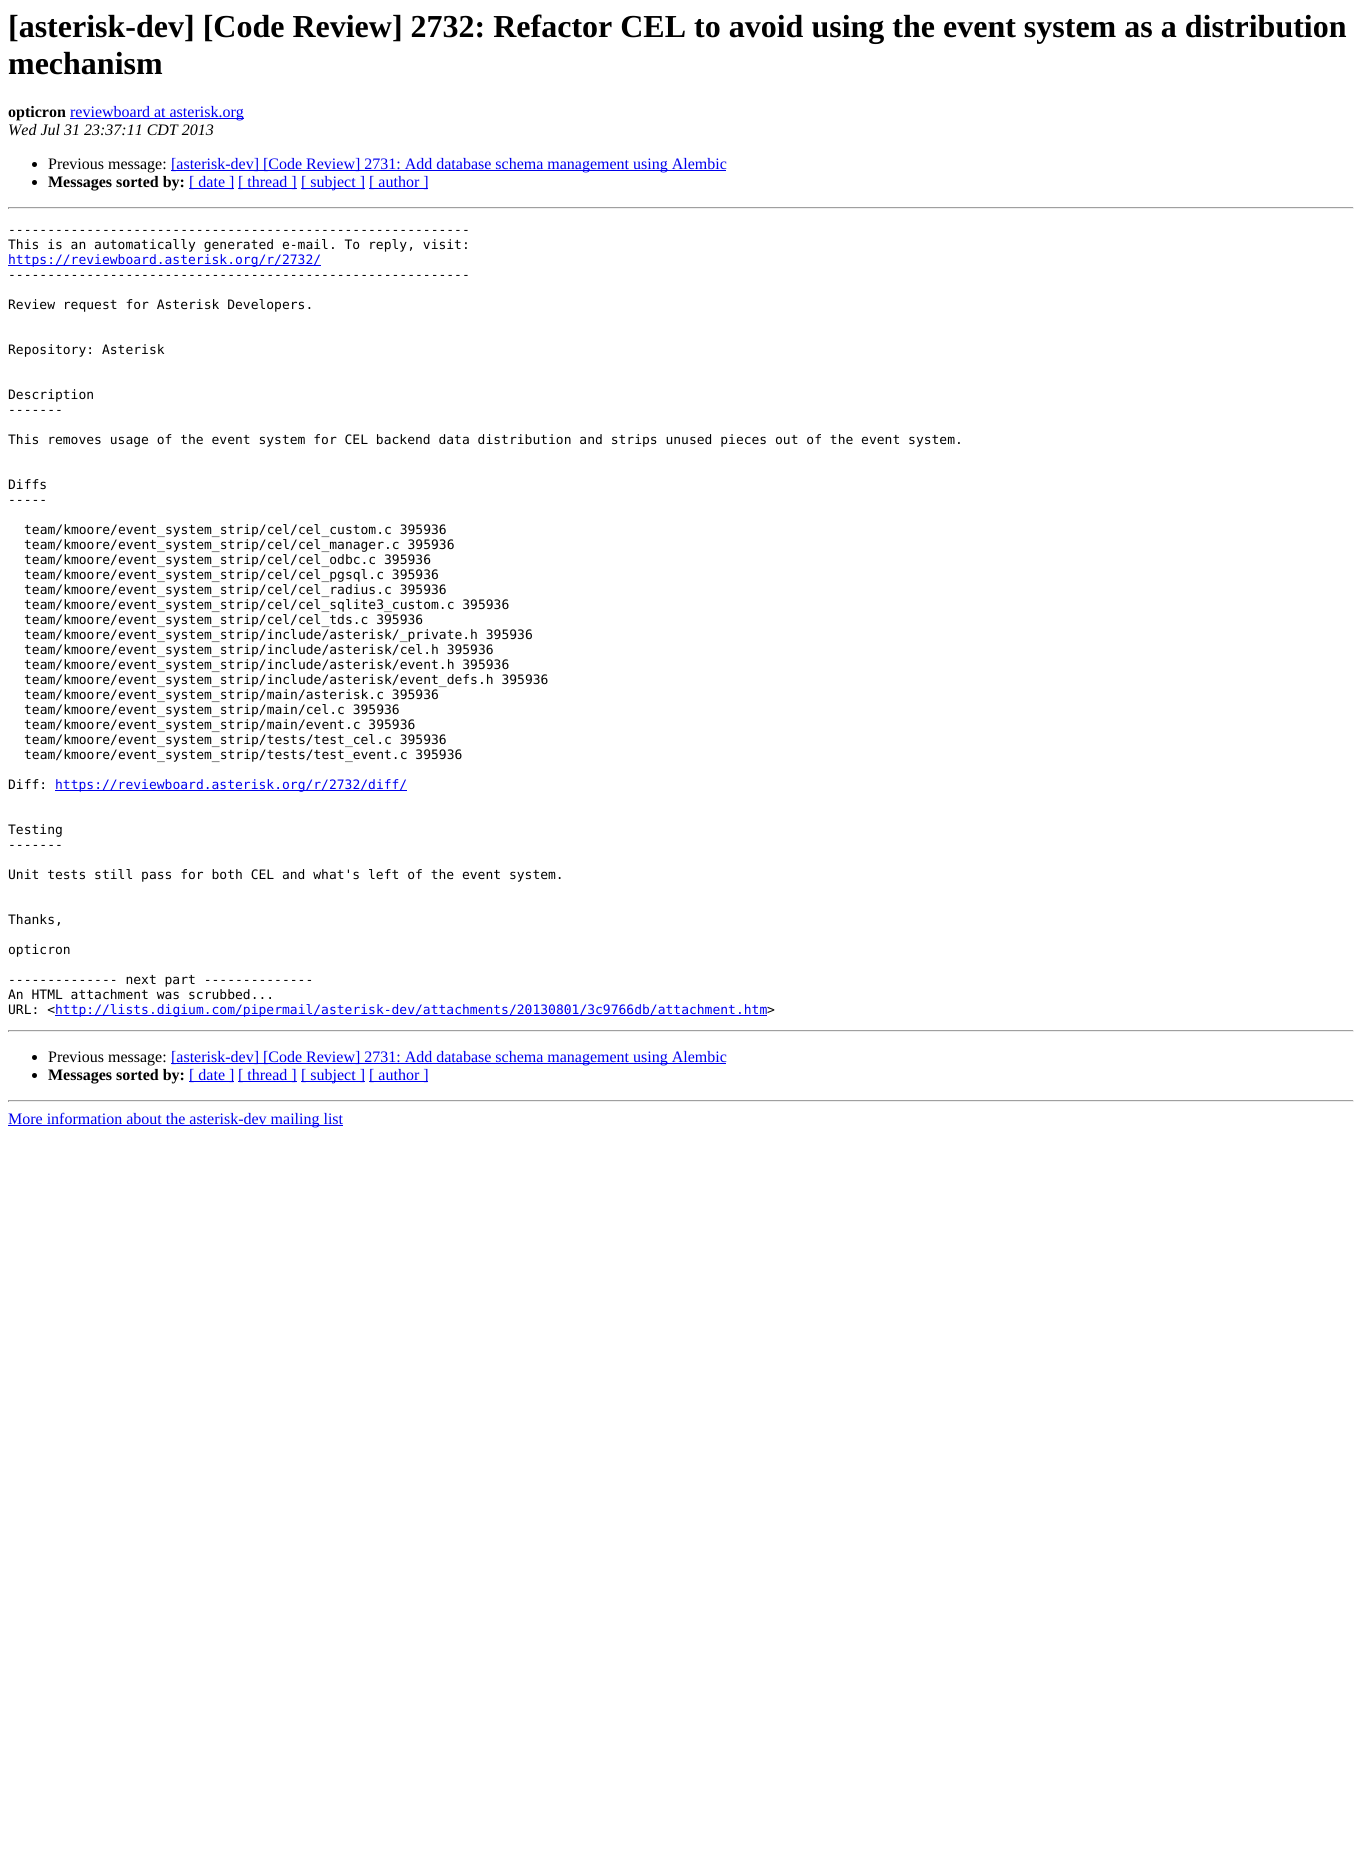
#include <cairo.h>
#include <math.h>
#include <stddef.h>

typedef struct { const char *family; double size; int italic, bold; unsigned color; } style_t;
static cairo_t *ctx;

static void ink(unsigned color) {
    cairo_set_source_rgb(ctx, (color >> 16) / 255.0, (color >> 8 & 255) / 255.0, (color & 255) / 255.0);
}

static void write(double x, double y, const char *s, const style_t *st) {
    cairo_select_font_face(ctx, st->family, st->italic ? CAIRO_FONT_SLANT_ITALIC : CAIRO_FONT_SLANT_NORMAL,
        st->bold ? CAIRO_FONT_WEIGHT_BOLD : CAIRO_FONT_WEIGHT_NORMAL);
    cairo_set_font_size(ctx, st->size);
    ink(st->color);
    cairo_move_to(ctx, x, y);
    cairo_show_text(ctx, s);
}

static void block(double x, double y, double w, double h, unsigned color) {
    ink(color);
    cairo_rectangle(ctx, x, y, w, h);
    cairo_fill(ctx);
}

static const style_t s1 = {"Liberation Serif", 32, 0, 1, 0x000000};
static const style_t s2 = {"Liberation Serif", 16, 0, 1, 0x000000};
static const style_t s3 = {"Liberation Serif", 16, 0, 0, 0x0000ee};
static const style_t s4 = {"Liberation Serif", 16, 1, 0, 0x000000};
static const style_t s5 = {"Liberation Serif", 16, 0, 0, 0x000000};
static const style_t s6 = {"DejaVu Sans Mono", 13, 0, 0, 0x000000};
static const style_t s7 = {"DejaVu Sans Mono", 13, 0, 0, 0x0000ee};

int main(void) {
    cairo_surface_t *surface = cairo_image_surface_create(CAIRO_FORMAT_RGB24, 1362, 1869);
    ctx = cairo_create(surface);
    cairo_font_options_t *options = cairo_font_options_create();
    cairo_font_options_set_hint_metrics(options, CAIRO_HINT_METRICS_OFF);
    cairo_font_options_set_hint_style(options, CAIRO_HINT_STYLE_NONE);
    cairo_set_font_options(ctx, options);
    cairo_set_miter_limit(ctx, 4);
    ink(0xffffff);
    cairo_paint(ctx);
    write(8, 37, "[asterisk-dev] [Code Review] 2732: Refactor CEL to avoid using the event system as a distribution", &s1);
    write(8, 74, "mechanism", &s1);
    write(8, 117, "opticron", &s2);
    block(70, 118, 174, 1, 0x0000ee);
    write(70, 117, "reviewboard at asterisk.org", &s3);
    write(8, 135, "Wed Jul 31 23:37:11 CDT 2013", &s4);
    cairo_new_path(ctx);
    cairo_arc(ctx, 34.5, 164.5, 2.5, 0, 2 * M_PI);
    cairo_fill(ctx);
    write(48, 169, "Previous message:", &s5);
    block(171, 170, 555, 1, 0x0000ee);
    write(171, 169, "[asterisk-dev] [Code Review] 2731: Add database schema management using Alembic", &s3);
    ink(0x000000);
    cairo_new_path(ctx);
    cairo_arc(ctx, 34.5, 182.5, 2.5, 0, 2 * M_PI);
    cairo_fill(ctx);
    write(48, 187, "Messages sorted by:", &s2);
    block(189, 188, 45, 1, 0x0000ee);
    write(189, 187, "[ date ]", &s3);
    block(238, 188, 59, 1, 0x0000ee);
    write(238, 187, "[ thread ]", &s3);
    block(301, 188, 64, 1, 0x0000ee);
    write(301, 187, "[ subject ]", &s3);
    block(369, 188, 59, 1, 0x0000ee);
    write(369, 187, "[ author ]", &s3);
    block(8, 207, 1346, 1, 0x9f9f9f);
    block(1353, 207, 1, 2, 0xeeeeee);
    block(8, 208, 1346, 1, 0xeeeeee);
    block(8, 207, 1, 2, 0x9f9f9f);
    write(8, 234, "-----------------------------------------------------------", &s6);
    write(8, 249, "This is an automatically generated e-mail. To reply, visit:", &s6);
    block(8, 265, 313, 1, 0x0000ee);
    write(8, 264, "https://reviewboard.asterisk.org/r/2732/", &s7);
    write(8, 279, "-----------------------------------------------------------", &s6);
    write(8, 309, "Review request for Asterisk Developers.", &s6);
    write(8, 354, "Repository: Asterisk", &s6);
    write(8, 399, "Description", &s6);
    write(8, 414, "-------", &s6);
    write(8, 444, "This removes usage of the event system for CEL backend data distribution and strips unused pieces out of the event system.", &s6);
    write(8, 489, "Diffs", &s6);
    write(8, 504, "-----", &s6);
    write(24, 534, "team/kmoore/event_system_strip/cel/cel_custom.c 395936", &s6);
    write(24, 549, "team/kmoore/event_system_strip/cel/cel_manager.c 395936", &s6);
    write(24, 564, "team/kmoore/event_system_strip/cel/cel_odbc.c 395936", &s6);
    write(24, 579, "team/kmoore/event_system_strip/cel/cel_pgsql.c 395936", &s6);
    write(24, 594, "team/kmoore/event_system_strip/cel/cel_radius.c 395936", &s6);
    write(24, 609, "team/kmoore/event_system_strip/cel/cel_sqlite3_custom.c 395936", &s6);
    write(24, 624, "team/kmoore/event_system_strip/cel/cel_tds.c 395936", &s6);
    write(24, 639, "team/kmoore/event_system_strip/include/asterisk/_private.h 395936", &s6);
    write(24, 654, "team/kmoore/event_system_strip/include/asterisk/cel.h 395936", &s6);
    write(24, 669, "team/kmoore/event_system_strip/include/asterisk/event.h 395936", &s6);
    write(24, 684, "team/kmoore/event_system_strip/include/asterisk/event_defs.h 395936", &s6);
    write(24, 699, "team/kmoore/event_system_strip/main/asterisk.c 395936", &s6);
    write(24, 714, "team/kmoore/event_system_strip/main/cel.c 395936", &s6);
    write(24, 729, "team/kmoore/event_system_strip/main/event.c 395936", &s6);
    write(24, 744, "team/kmoore/event_system_strip/tests/test_cel.c 395936", &s6);
    write(24, 759, "team/kmoore/event_system_strip/tests/test_event.c 395936", &s6);
    write(8, 789, "Diff:", &s6);
    block(55, 790, 352, 1, 0x0000ee);
    write(55, 789, "https://reviewboard.asterisk.org/r/2732/diff/", &s7);
    write(8, 834, "Testing", &s6);
    write(8, 849, "-------", &s6);
    write(8, 879, "Unit tests still pass for both CEL and what's left of the event system.", &s6);
    write(8, 924, "Thanks,", &s6);
    write(8, 954, "opticron", &s6);
    write(8, 984, "-------------- next part --------------", &s6);
    write(8, 999, "An HTML attachment was scrubbed...", &s6);
    write(8, 1014, "URL: <", &s6);
    block(55, 1015, 712, 1, 0x0000ee);
    write(55, 1014, "http://lists.digium.com/pipermail/asterisk-dev/attachments/20130801/3c9766db/attachment.htm", &s7);
    write(767, 1014, ">", &s6);
    block(8, 1030, 1346, 1, 0x9f9f9f);
    block(1353, 1030, 1, 2, 0xeeeeee);
    block(8, 1031, 1346, 1, 0xeeeeee);
    block(8, 1030, 1, 2, 0x9f9f9f);
    ink(0x000000);
    cairo_new_path(ctx);
    cairo_arc(ctx, 34.5, 1057.5, 2.5, 0, 2 * M_PI);
    cairo_fill(ctx);
    write(48, 1062, "Previous message:", &s5);
    block(171, 1063, 555, 1, 0x0000ee);
    write(171, 1062, "[asterisk-dev] [Code Review] 2731: Add database schema management using Alembic", &s3);
    ink(0x000000);
    cairo_new_path(ctx);
    cairo_arc(ctx, 34.5, 1075.5, 2.5, 0, 2 * M_PI);
    cairo_fill(ctx);
    write(48, 1080, "Messages sorted by:", &s2);
    block(189, 1081, 45, 1, 0x0000ee);
    write(189, 1080, "[ date ]", &s3);
    block(238, 1081, 59, 1, 0x0000ee);
    write(238, 1080, "[ thread ]", &s3);
    block(301, 1081, 64, 1, 0x0000ee);
    write(301, 1080, "[ subject ]", &s3);
    block(369, 1081, 59, 1, 0x0000ee);
    write(369, 1080, "[ author ]", &s3);
    block(8, 1100, 1346, 1, 0x9f9f9f);
    block(1353, 1100, 1, 2, 0xeeeeee);
    block(8, 1101, 1346, 1, 0xeeeeee);
    block(8, 1100, 1, 2, 0x9f9f9f);
    block(8, 1125, 335, 1, 0x0000ee);
    write(8, 1124, "More information about the asterisk-dev mailing list", &s3);
    cairo_surface_write_to_png(surface, "screenshot.png");
    cairo_font_options_destroy(options);
    cairo_destroy(ctx);
    cairo_surface_destroy(surface);
    return 0;
}
